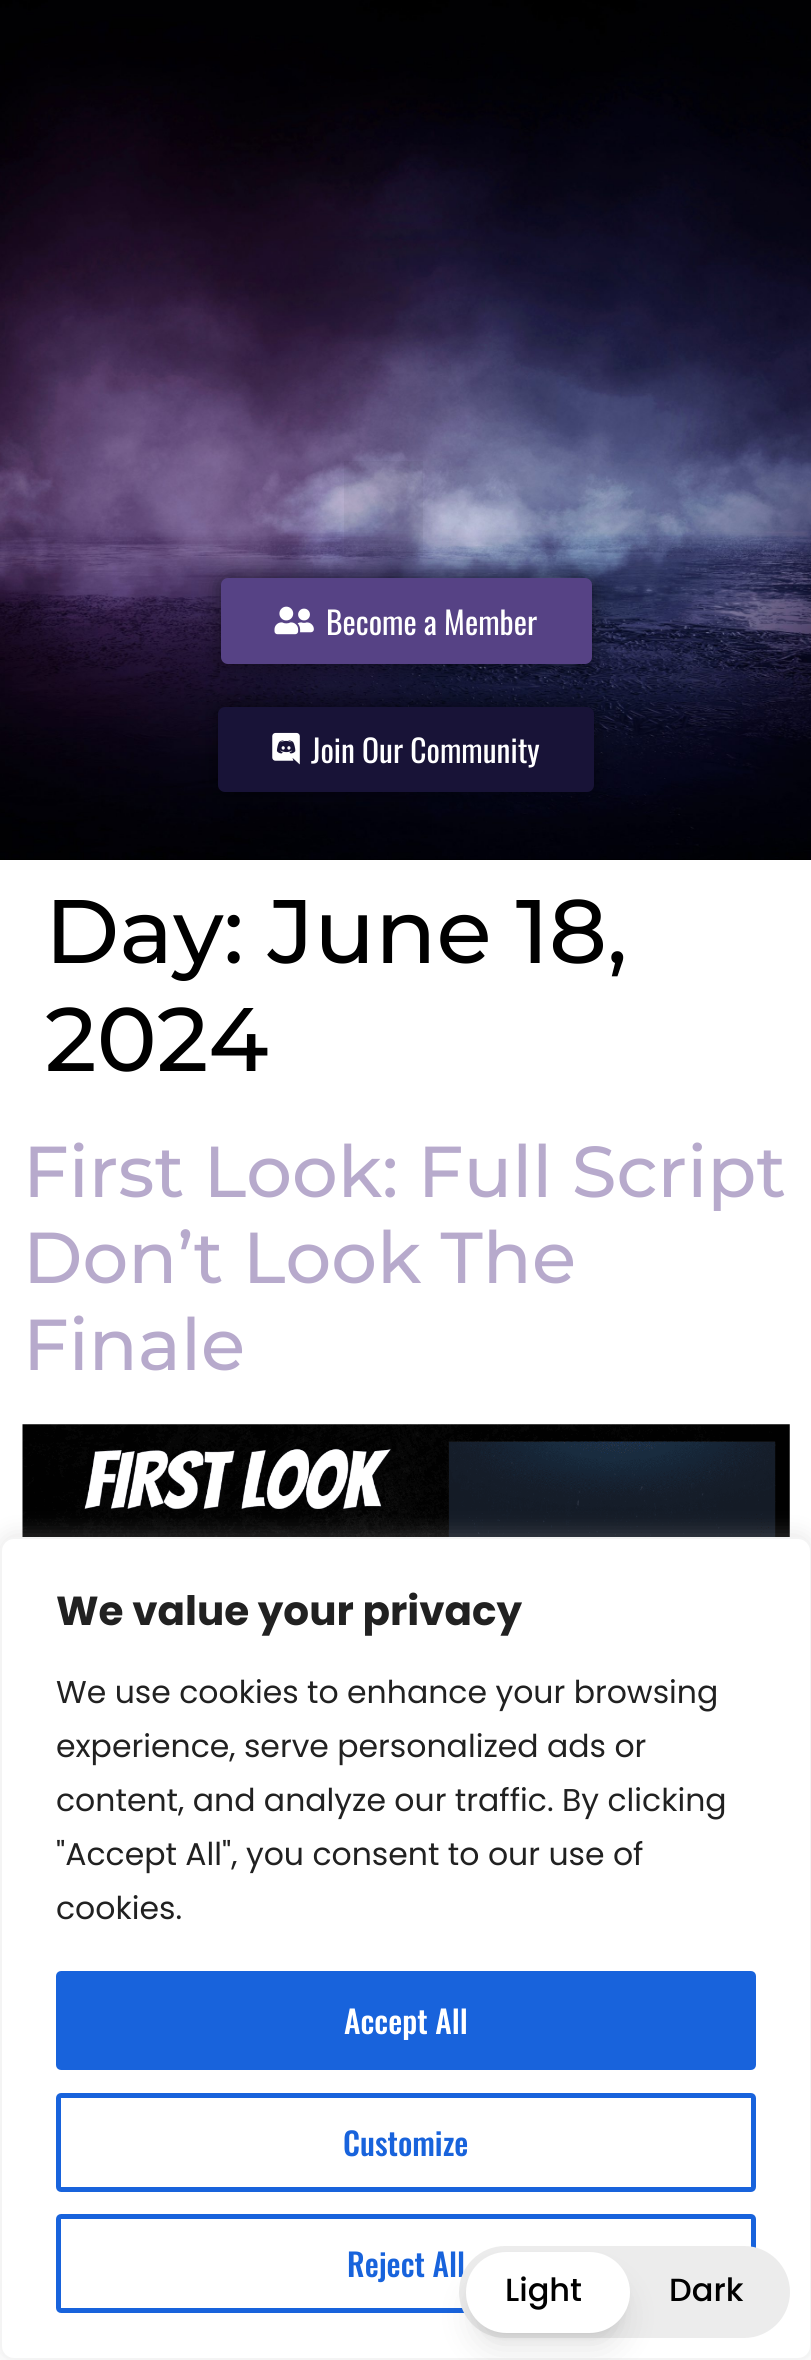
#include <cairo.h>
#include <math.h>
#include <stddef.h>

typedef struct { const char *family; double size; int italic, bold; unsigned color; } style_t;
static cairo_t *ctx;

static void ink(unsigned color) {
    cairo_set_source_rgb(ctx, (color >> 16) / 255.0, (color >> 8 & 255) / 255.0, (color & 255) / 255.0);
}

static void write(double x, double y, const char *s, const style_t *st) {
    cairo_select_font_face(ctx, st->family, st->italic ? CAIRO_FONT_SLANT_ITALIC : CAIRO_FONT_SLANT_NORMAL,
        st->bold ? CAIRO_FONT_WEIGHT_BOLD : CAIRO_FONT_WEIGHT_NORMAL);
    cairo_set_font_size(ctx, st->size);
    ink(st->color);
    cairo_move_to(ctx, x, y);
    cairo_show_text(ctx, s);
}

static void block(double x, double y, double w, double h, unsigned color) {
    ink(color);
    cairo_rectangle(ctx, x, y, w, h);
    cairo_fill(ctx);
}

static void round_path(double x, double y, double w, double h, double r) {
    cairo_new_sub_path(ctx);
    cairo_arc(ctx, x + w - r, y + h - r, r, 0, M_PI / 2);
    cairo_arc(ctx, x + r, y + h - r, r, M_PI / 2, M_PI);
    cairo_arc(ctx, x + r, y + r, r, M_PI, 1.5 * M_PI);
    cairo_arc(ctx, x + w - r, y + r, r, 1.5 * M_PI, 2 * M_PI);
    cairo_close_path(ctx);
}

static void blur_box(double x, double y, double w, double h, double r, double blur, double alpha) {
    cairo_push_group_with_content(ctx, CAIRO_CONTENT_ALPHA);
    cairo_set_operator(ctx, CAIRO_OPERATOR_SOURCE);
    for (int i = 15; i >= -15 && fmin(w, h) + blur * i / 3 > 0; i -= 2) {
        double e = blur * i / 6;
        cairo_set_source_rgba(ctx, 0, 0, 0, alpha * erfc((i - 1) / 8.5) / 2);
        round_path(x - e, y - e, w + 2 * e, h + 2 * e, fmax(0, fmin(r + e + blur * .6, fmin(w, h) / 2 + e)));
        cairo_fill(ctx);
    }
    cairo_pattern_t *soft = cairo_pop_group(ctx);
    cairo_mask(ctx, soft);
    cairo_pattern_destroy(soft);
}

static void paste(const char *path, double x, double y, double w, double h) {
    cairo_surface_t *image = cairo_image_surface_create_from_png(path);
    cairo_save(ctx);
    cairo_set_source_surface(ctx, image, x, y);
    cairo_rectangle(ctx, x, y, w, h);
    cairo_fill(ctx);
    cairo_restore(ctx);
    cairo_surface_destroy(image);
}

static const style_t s1 = {"Oswald", 31.5, 0, 0, 0xffffff};
static const style_t s2 = {"Montserrat Medium", 90, 0, 0, 0x000000};
static const style_t s3 = {"Montserrat Medium", 72, 0, 0, 0xb7aacc};
static const style_t s4 = {"Poppins", 40.5, 0, 1, 0x212121};
static const style_t s5 = {"Poppins", 31.5, 0, 0, 0x212121};
static const style_t s6 = {"Oswald Medium", 31.5, 0, 0, 0xffffff};
static const style_t s7 = {"Oswald Medium", 31.5, 0, 0, 0x1863dc};
static const style_t s8 = {"Poppins Medium", 32, 0, 0, 0x000000};

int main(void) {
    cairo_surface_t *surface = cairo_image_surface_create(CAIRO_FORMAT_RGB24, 811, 2360);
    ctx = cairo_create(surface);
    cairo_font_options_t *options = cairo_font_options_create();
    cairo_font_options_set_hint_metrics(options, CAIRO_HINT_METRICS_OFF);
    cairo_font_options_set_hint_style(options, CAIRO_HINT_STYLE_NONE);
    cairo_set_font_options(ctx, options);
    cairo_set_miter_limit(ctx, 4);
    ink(0xffffff);
    cairo_paint(ctx);
    block(0, 859, 811, 1, 0x000000);
    paste("pic1.png", 0, 0, 811, 860);
    cairo_set_source_rgba(ctx, 0, 0, 0, 0.05);
    cairo_rectangle(ctx, 344, 461, 79, 95);
    cairo_fill(ctx);
    ink(0x000000);
    blur_box(221, 578, 371, 86, 7, 11, 0.5);
    ink(0x564285);
    round_path(221, 578, 371, 86, 7);
    cairo_fill(ctx);
    paste("pic2.png", 274, 606, 40, 29);
    write(326, 635, "Become a Member", &s1);
    ink(0x000000);
    blur_box(218, 707, 376, 85, 7, 11, 0.5);
    ink(0x181337);
    round_path(218, 707, 376, 85, 7);
    cairo_fill(ctx);
    paste("pic3.png", 272, 732, 28, 33);
    write(311, 763, "Join Our Community", &s1);
    write(45, 963, "Day: June 18,", &s2);
    write(45, 1071, "2024", &s2);
    write(23, 1197, "First Look: Full Script", &s3);
    write(23, 1283, "Don’t Look The", &s3);
    write(23, 1370, "Finale", &s3);
    paste("pic4.png", 22, 1424, 768, 113);
    ink(0xacabab);
    blur_box(0, 1535, 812, 823, 14, 11, 0.3);
    ink(0xffffff);
    round_path(1, 1538, 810, 821, 13);
    cairo_fill_preserve(ctx);
    ink(0xf4f4f4);
    cairo_stroke(ctx);
    write(56, 1625, "We value your privacy", &s4);
    write(56, 1703, "We use cookies to enhance your browsing", &s5);
    write(56, 1757, "experience, serve personalized ads or", &s5);
    write(56, 1811, "content, and analyze our traffic. By clicking", &s5);
    write(56, 1865, "\"Accept All\", you consent to our use of", &s5);
    write(56, 1919, "cookies.", &s5);
    ink(0x1863dc);
    round_path(58.5, 1973.5, 695, 94, 2.5);
    cairo_fill_preserve(ctx);
    cairo_set_line_width(ctx, 5);
    cairo_stroke(ctx);
    write(344, 2034, "Accept All", &s6);
    round_path(58.5, 2095.5, 695, 94, 2.5);
    ink(0x1863dc);
    cairo_stroke(ctx);
    write(343, 2156, "Customize", &s7);
    round_path(58.5, 2216.5, 695, 94, 2.5);
    cairo_stroke(ctx);
    write(347, 2277, "Reject All", &s7);
    ink(0xececec);
    round_path(459, 2246, 331, 92, 46);
    cairo_fill(ctx);
    ink(0x000000);
    blur_box(475, 2270, 146, 63, 31.5, 7, 0.1);
    blur_box(473, 2282, 150, 67, 33.5, 17, 0.1);
    ink(0xffffff);
    round_path(466, 2252, 164, 81, 40.5);
    cairo_fill(ctx);
    write(505, 2301, "Light", &s8);
    write(669, 2301, "Dark", &s8);
    cairo_surface_write_to_png(surface, "screenshot.png");
    cairo_font_options_destroy(options);
    cairo_destroy(ctx);
    cairo_surface_destroy(surface);
    return 0;
}
